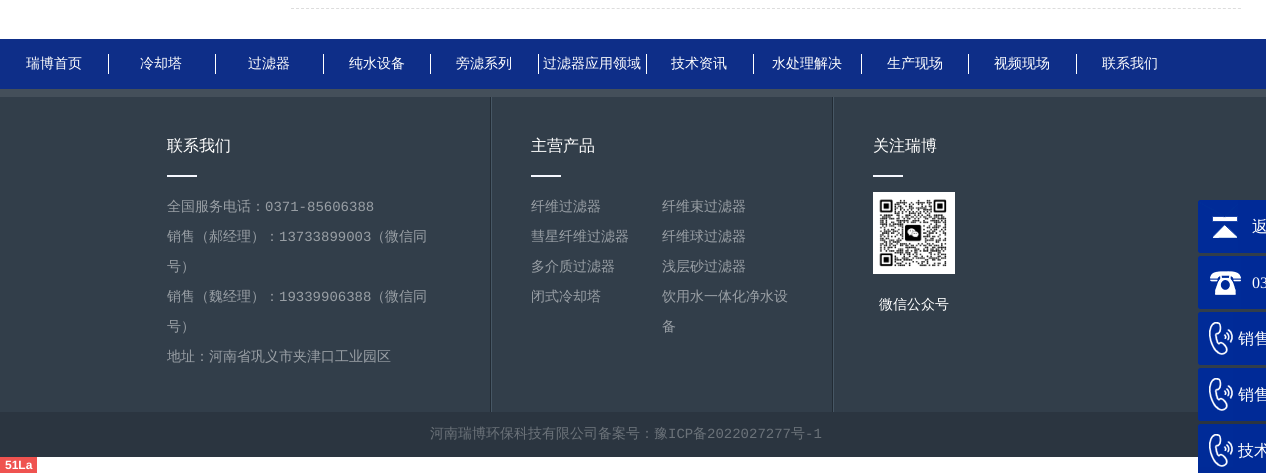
#include <cairo.h>
#include <math.h>
#include <stddef.h>

typedef struct { const char *family; double size; int italic, bold; unsigned color; } style_t;
static cairo_t *ctx;

static void ink(unsigned color) {
    cairo_set_source_rgb(ctx, (color >> 16) / 255.0, (color >> 8 & 255) / 255.0, (color & 255) / 255.0);
}

static void write(double x, double y, const char *s, const style_t *st) {
    cairo_select_font_face(ctx, st->family, st->italic ? CAIRO_FONT_SLANT_ITALIC : CAIRO_FONT_SLANT_NORMAL,
        st->bold ? CAIRO_FONT_WEIGHT_BOLD : CAIRO_FONT_WEIGHT_NORMAL);
    cairo_set_font_size(ctx, st->size);
    ink(st->color);
    cairo_move_to(ctx, x, y);
    cairo_show_text(ctx, s);
}

static void block(double x, double y, double w, double h, unsigned color) {
    ink(color);
    cairo_rectangle(ctx, x, y, w, h);
    cairo_fill(ctx);
}

static void round_path(double x, double y, double w, double h, double r) {
    cairo_new_sub_path(ctx);
    cairo_arc(ctx, x + w - r, y + h - r, r, 0, M_PI / 2);
    cairo_arc(ctx, x + r, y + h - r, r, M_PI / 2, M_PI);
    cairo_arc(ctx, x + r, y + r, r, M_PI, 1.5 * M_PI);
    cairo_arc(ctx, x + w - r, y + r, r, 1.5 * M_PI, 2 * M_PI);
    cairo_close_path(ctx);
}

static void paste(const char *path, double x, double y, double w, double h) {
    cairo_surface_t *image = cairo_image_surface_create_from_png(path);
    cairo_save(ctx);
    cairo_set_source_surface(ctx, image, x, y);
    cairo_rectangle(ctx, x, y, w, h);
    cairo_fill(ctx);
    cairo_restore(ctx);
    cairo_surface_destroy(image);
}

static const style_t s1 = {"WenQuanYi Zen Hei Medium", 14, 0, 0, 0xffffff};
static const style_t s2 = {"WenQuanYi Zen Hei Medium", 16, 0, 0, 0xffffff};
static const style_t s3 = {"WenQuanYi Zen Hei Medium", 14, 0, 0, 0x999fa5};
static const style_t s4 = {"Liberation Mono", 14, 0, 0, 0x999fa5};
static const style_t s5 = {"Liberation Serif", 16, 0, 0, 0xffffff};
static const style_t s6 = {"WenQuanYi Zen Hei Medium", 14, 0, 0, 0x6b7279};
static const style_t s7 = {"Liberation Mono", 14, 0, 0, 0x6b7279};
static const style_t s8 = {"Liberation Sans", 12, 0, 1, 0xffffff};

int main(void) {
    cairo_surface_t *surface = cairo_image_surface_create(CAIRO_FORMAT_RGB24, 1266, 473);
    ctx = cairo_create(surface);
    cairo_font_options_t *options = cairo_font_options_create();
    cairo_font_options_set_hint_metrics(options, CAIRO_HINT_METRICS_OFF);
    cairo_font_options_set_hint_style(options, CAIRO_HINT_STYLE_NONE);
    cairo_set_font_options(ctx, options);
    cairo_set_miter_limit(ctx, 4);
    ink(0xffffff);
    cairo_paint(ctx);
    cairo_new_path(ctx);
    cairo_move_to(ctx, 291, 8.5);
    cairo_line_to(ctx, 1241, 8.5);
    ink(0xdddddd);
    cairo_set_line_width(ctx, 1);
    cairo_set_dash(ctx, (double[]){3, 2.01}, 2, 0);
    cairo_stroke(ctx);
    block(0, 39, 1266, 50, 0x0e2e88);
    write(26, 68, "瑞博首页", &s1);
    block(108, 54, 1, 20, 0xffffff);
    write(140, 68, "冷却塔", &s1);
    block(215, 54, 1, 20, 0xffffff);
    write(248, 68, "过滤器", &s1);
    block(323, 54, 1, 20, 0xffffff);
    write(349, 68, "纯水设备", &s1);
    block(430, 54, 1, 20, 0xffffff);
    write(456, 68, "旁滤系列", &s1);
    block(538, 54, 1, 20, 0xffffff);
    write(543, 68, "过滤器应用领域", &s1);
    block(646, 54, 1, 20, 0xffffff);
    write(671, 68, "技术资讯", &s1);
    block(753, 54, 1, 20, 0xffffff);
    write(772, 68, "水处理解决", &s1);
    block(861, 54, 1, 20, 0xffffff);
    write(887, 68, "生产现场", &s1);
    block(968, 54, 1, 20, 0xffffff);
    write(994, 68, "视频现场", &s1);
    block(1076, 54, 1, 20, 0xffffff);
    write(1102, 68, "联系我们", &s1);
    block(0, 97, 1266, 315, 0x323e4a);
    block(0, 89, 1266, 8, 0x444f5a);
    write(167, 151, "联系我们", &s2);
    block(167, 175, 30, 2, 0xf5f7ff);
    write(167, 211, "全国服务电话：", &s3);
    write(265, 211, "0371-85606388", &s4);
    write(167, 241, "销售（郝经理）：", &s3);
    write(279, 241, "13733899003", &s4);
    write(371, 241, "（微信同", &s3);
    write(167, 271, "号）", &s3);
    write(167, 301, "销售（魏经理）：", &s3);
    write(279, 301, "19339906388", &s4);
    write(371, 301, "（微信同", &s3);
    write(167, 331, "号）", &s3);
    write(167, 361, "地址：河南省巩义市夹津口工业园区", &s3);
    block(490, 97, 1, 315, 0x222b34);
    block(491, 97, 1, 315, 0x475765);
    write(531, 151, "主营产品", &s2);
    block(531, 175, 30, 2, 0xf5f7ff);
    write(531, 211, "纤维过滤器", &s3);
    write(662, 211, "纤维束过滤器", &s3);
    write(531, 241, "彗星纤维过滤器", &s3);
    write(662, 241, "纤维球过滤器", &s3);
    write(531, 271, "多介质过滤器", &s3);
    write(662, 271, "浅层砂过滤器", &s3);
    write(531, 301, "闭式冷却塔", &s3);
    write(662, 301, "饮用水一体化净水设", &s3);
    write(662, 331, "备", &s3);
    block(832, 97, 1, 315, 0x222b34);
    block(833, 97, 1, 315, 0x475765);
    write(873, 151, "关注瑞博", &s2);
    block(873, 175, 30, 2, 0xf5f7ff);
    paste("pic1.png", 873, 192, 82, 82);
    write(879, 309, "微信公众号", &s1);
    ink(0x002a97);
    round_path(1198, 200, 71, 53, 3);
    cairo_fill(ctx);
    paste("pic2.png", 1198, 200, 40, 53);
    write(1252, 232, "返", &s2);
    ink(0x002a97);
    round_path(1198, 256, 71, 53, 3);
    cairo_fill(ctx);
    paste("pic3.png", 1198, 256, 43, 53);
    write(1252, 288, "03", &s5);
    ink(0x002a97);
    round_path(1198, 312, 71, 53, 3);
    cairo_fill(ctx);
    paste("pic4.png", 1198, 312, 35, 53);
    write(1238, 344, "销售", &s2);
    block(0, 412, 1266, 45, 0x2b3540);
    ink(0x002a97);
    round_path(1198, 368, 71, 53, 3);
    cairo_fill(ctx);
    paste("pic5.png", 1198, 368, 35, 53);
    write(1238, 400, "销售", &s2);
    ink(0x002a97);
    round_path(1198, 424, 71, 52, 3);
    cairo_fill(ctx);
    paste("pic6.png", 1198, 424, 35, 43);
    write(1238, 456, "技术", &s2);
    write(430, 438, "河南瑞博环保科技有限公司备案号：豫", &s6);
    write(668, 438, "ICP", &s7);
    write(693, 438, "备", &s6);
    write(707, 438, "2022027277", &s7);
    write(791, 438, "号", &s6);
    write(805, 438, "-1", &s7);
    block(0, 457, 37, 16, 0xef5350);
    write(5, 469, "51La", &s8);
    cairo_surface_write_to_png(surface, "screenshot.png");
    cairo_font_options_destroy(options);
    cairo_destroy(ctx);
    cairo_surface_destroy(surface);
    return 0;
}
